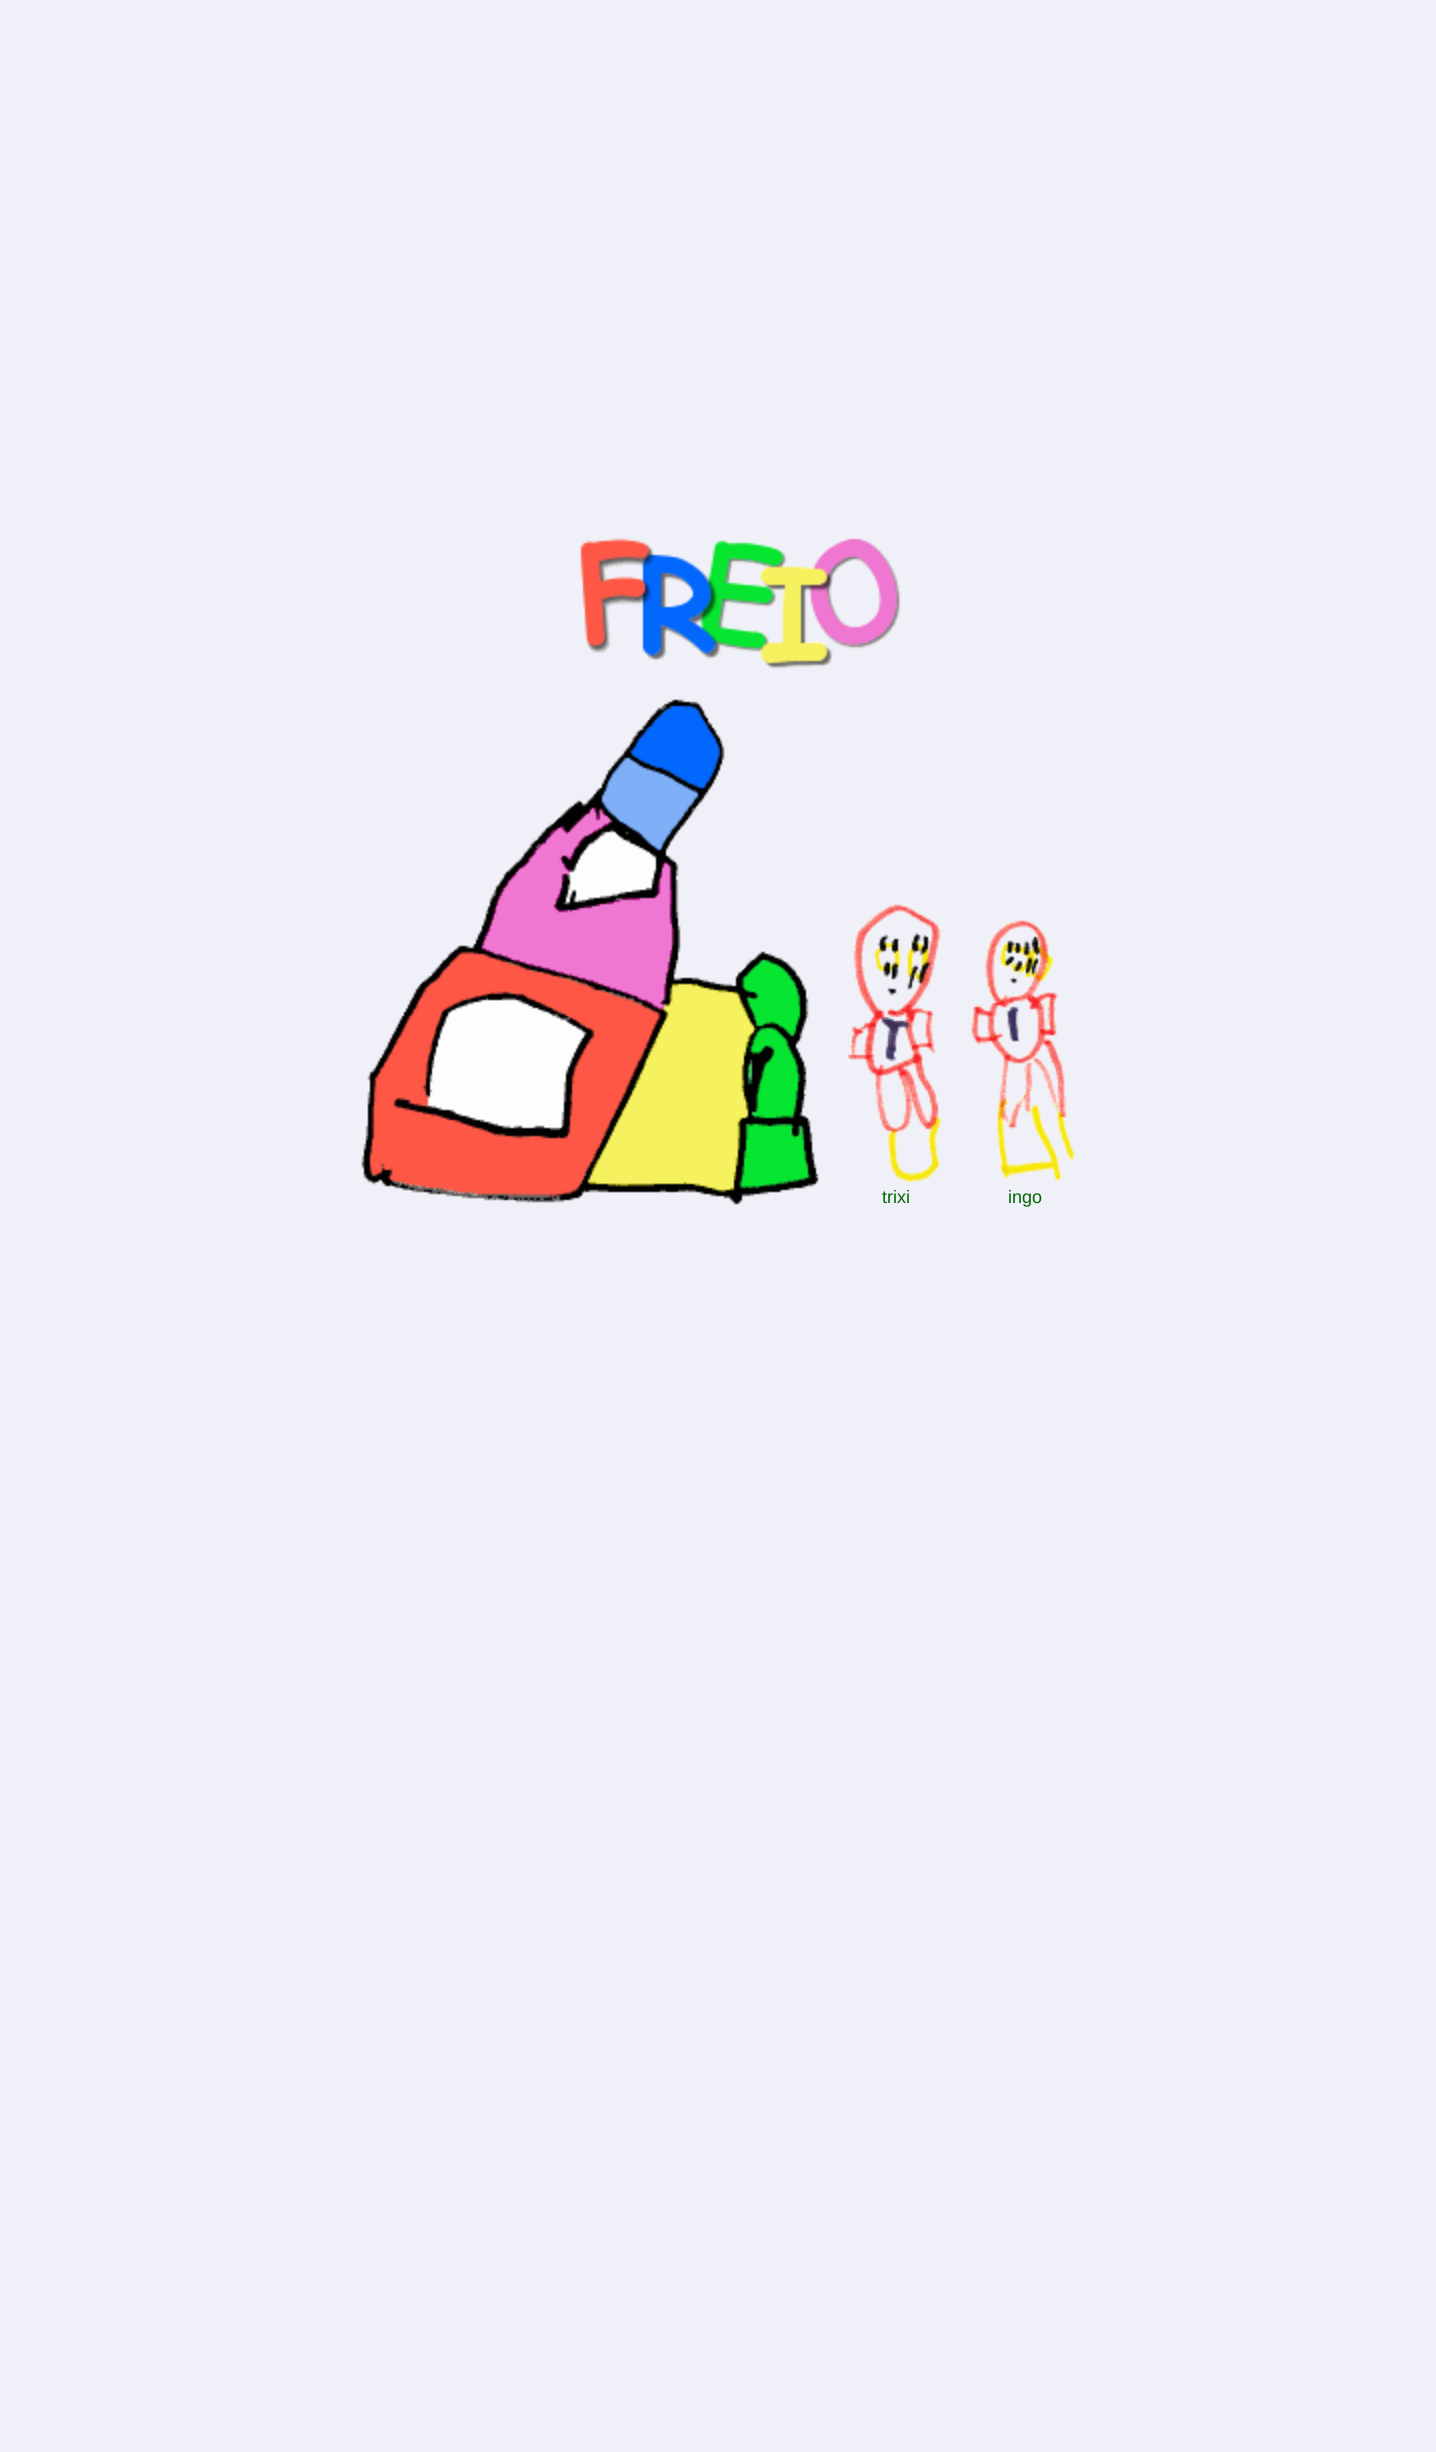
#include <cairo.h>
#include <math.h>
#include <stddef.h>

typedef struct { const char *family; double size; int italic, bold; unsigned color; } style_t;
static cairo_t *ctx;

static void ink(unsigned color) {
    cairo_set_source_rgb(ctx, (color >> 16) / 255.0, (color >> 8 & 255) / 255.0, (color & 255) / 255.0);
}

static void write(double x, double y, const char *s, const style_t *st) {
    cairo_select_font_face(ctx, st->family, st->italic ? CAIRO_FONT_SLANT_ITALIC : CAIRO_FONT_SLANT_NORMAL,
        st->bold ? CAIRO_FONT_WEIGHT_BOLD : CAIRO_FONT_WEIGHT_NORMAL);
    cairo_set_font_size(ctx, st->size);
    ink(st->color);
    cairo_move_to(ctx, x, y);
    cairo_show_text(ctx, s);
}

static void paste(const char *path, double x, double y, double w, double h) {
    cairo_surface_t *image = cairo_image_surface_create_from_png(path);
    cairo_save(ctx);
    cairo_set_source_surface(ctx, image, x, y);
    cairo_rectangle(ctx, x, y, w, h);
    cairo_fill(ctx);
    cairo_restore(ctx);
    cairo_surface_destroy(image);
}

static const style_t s1 = {"Liberation Sans", 18, 0, 0, 0x006600};

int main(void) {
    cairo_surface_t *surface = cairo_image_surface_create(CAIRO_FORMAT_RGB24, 1436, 2452);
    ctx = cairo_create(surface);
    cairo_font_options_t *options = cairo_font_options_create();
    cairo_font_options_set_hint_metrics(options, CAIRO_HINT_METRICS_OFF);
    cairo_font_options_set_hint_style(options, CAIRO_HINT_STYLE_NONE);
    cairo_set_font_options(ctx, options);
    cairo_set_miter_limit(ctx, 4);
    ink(0xf0f0f8);
    cairo_paint(ctx);
    paste("pic1.png", 580, 538, 322, 132);
    paste("pic2.png", 361, 699, 458, 506);
    paste("pic3.png", 853, 904, 88, 113);
    paste("pic4.png", 847, 1017, 94, 165);
    write(882, 1203, "trixi", &s1);
    paste("pic5.png", 985, 920, 70, 67);
    paste("pic6.png", 971, 987, 88, 64);
    paste("pic7.png", 995, 1051, 80, 131);
    write(1008, 1203, "ingo", &s1);
    cairo_surface_write_to_png(surface, "screenshot.png");
    cairo_font_options_destroy(options);
    cairo_destroy(ctx);
    cairo_surface_destroy(surface);
    return 0;
}
